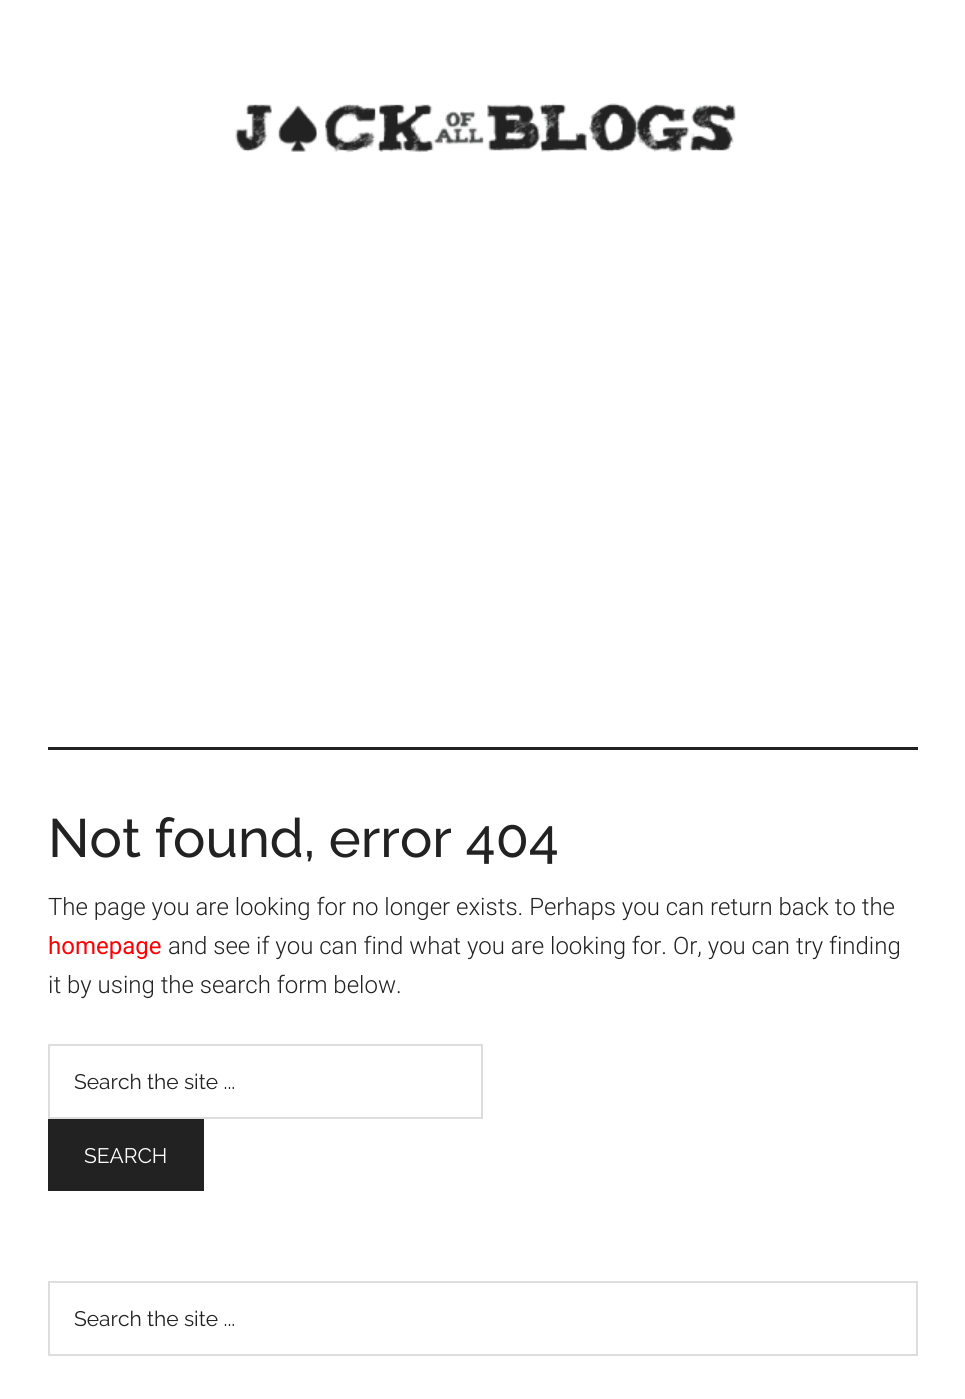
#include <cairo.h>
#include <math.h>
#include <stddef.h>

typedef struct { const char *family; double size; int italic, bold; unsigned color; } style_t;
static cairo_t *ctx;

static void ink(unsigned color) {
    cairo_set_source_rgb(ctx, (color >> 16) / 255.0, (color >> 8 & 255) / 255.0, (color & 255) / 255.0);
}

static void write(double x, double y, const char *s, const style_t *st) {
    cairo_select_font_face(ctx, st->family, st->italic ? CAIRO_FONT_SLANT_ITALIC : CAIRO_FONT_SLANT_NORMAL,
        st->bold ? CAIRO_FONT_WEIGHT_BOLD : CAIRO_FONT_WEIGHT_NORMAL);
    cairo_set_font_size(ctx, st->size);
    ink(st->color);
    cairo_move_to(ctx, x, y);
    cairo_show_text(ctx, s);
}

static void block(double x, double y, double w, double h, unsigned color) {
    ink(color);
    cairo_rectangle(ctx, x, y, w, h);
    cairo_fill(ctx);
}

static void paste(const char *path, double x, double y, double w, double h) {
    cairo_surface_t *image = cairo_image_surface_create_from_png(path);
    cairo_save(ctx);
    cairo_set_source_surface(ctx, image, x, y);
    cairo_rectangle(ctx, x, y, w, h);
    cairo_fill(ctx);
    cairo_restore(ctx);
    cairo_surface_destroy(image);
}

static const style_t s1 = {"Raleway Medium", 54, 0, 0, 0x222222};
static const style_t s2 = {"Roboto Light", 24, 0, 0, 0x222222};
static const style_t s3 = {"Roboto", 24, 0, 0, 0xff0000};
static const style_t s4 = {"Raleway", 21, 0, 0, 0x222222};
static const style_t s5 = {"Raleway", 21, 0, 0, 0xffffff};

int main(void) {
    cairo_surface_t *surface = cairo_image_surface_create(CAIRO_FORMAT_RGB24, 965, 1399);
    ctx = cairo_create(surface);
    cairo_font_options_t *options = cairo_font_options_create();
    cairo_font_options_set_hint_metrics(options, CAIRO_HINT_METRICS_OFF);
    cairo_font_options_set_hint_style(options, CAIRO_HINT_STYLE_NONE);
    cairo_set_font_options(ctx, options);
    cairo_set_miter_limit(ctx, 4);
    ink(0xffffff);
    cairo_paint(ctx);
    block(48, 747, 870, 3, 0x222222);
    paste("pic1.png", 235, 103, 501, 50);
    write(48, 857, "Not found, error 404", &s1);
    write(48, 915, "The page you are looking for no longer exists. Perhaps you can return back to the", &s2);
    write(48, 954, "homepage", &s3);
    write(168, 954, "and see if you can find what you are looking for. Or, you can try finding", &s2);
    write(48, 993, "it by using the search form below.", &s2);
    cairo_rectangle(ctx, 49, 1045, 433, 73);
    ink(0xdddddd);
    cairo_stroke(ctx);
    write(74, 1089, "Search the site ...", &s4);
    block(48, 1119, 156, 72, 0x222222);
    write(84, 1163, "SEARCH", &s5);
    cairo_rectangle(ctx, 49, 1282, 868, 73);
    ink(0xdddddd);
    cairo_stroke(ctx);
    write(74, 1326, "Search the site ...", &s4);
    cairo_surface_write_to_png(surface, "screenshot.png");
    cairo_font_options_destroy(options);
    cairo_destroy(ctx);
    cairo_surface_destroy(surface);
    return 0;
}
